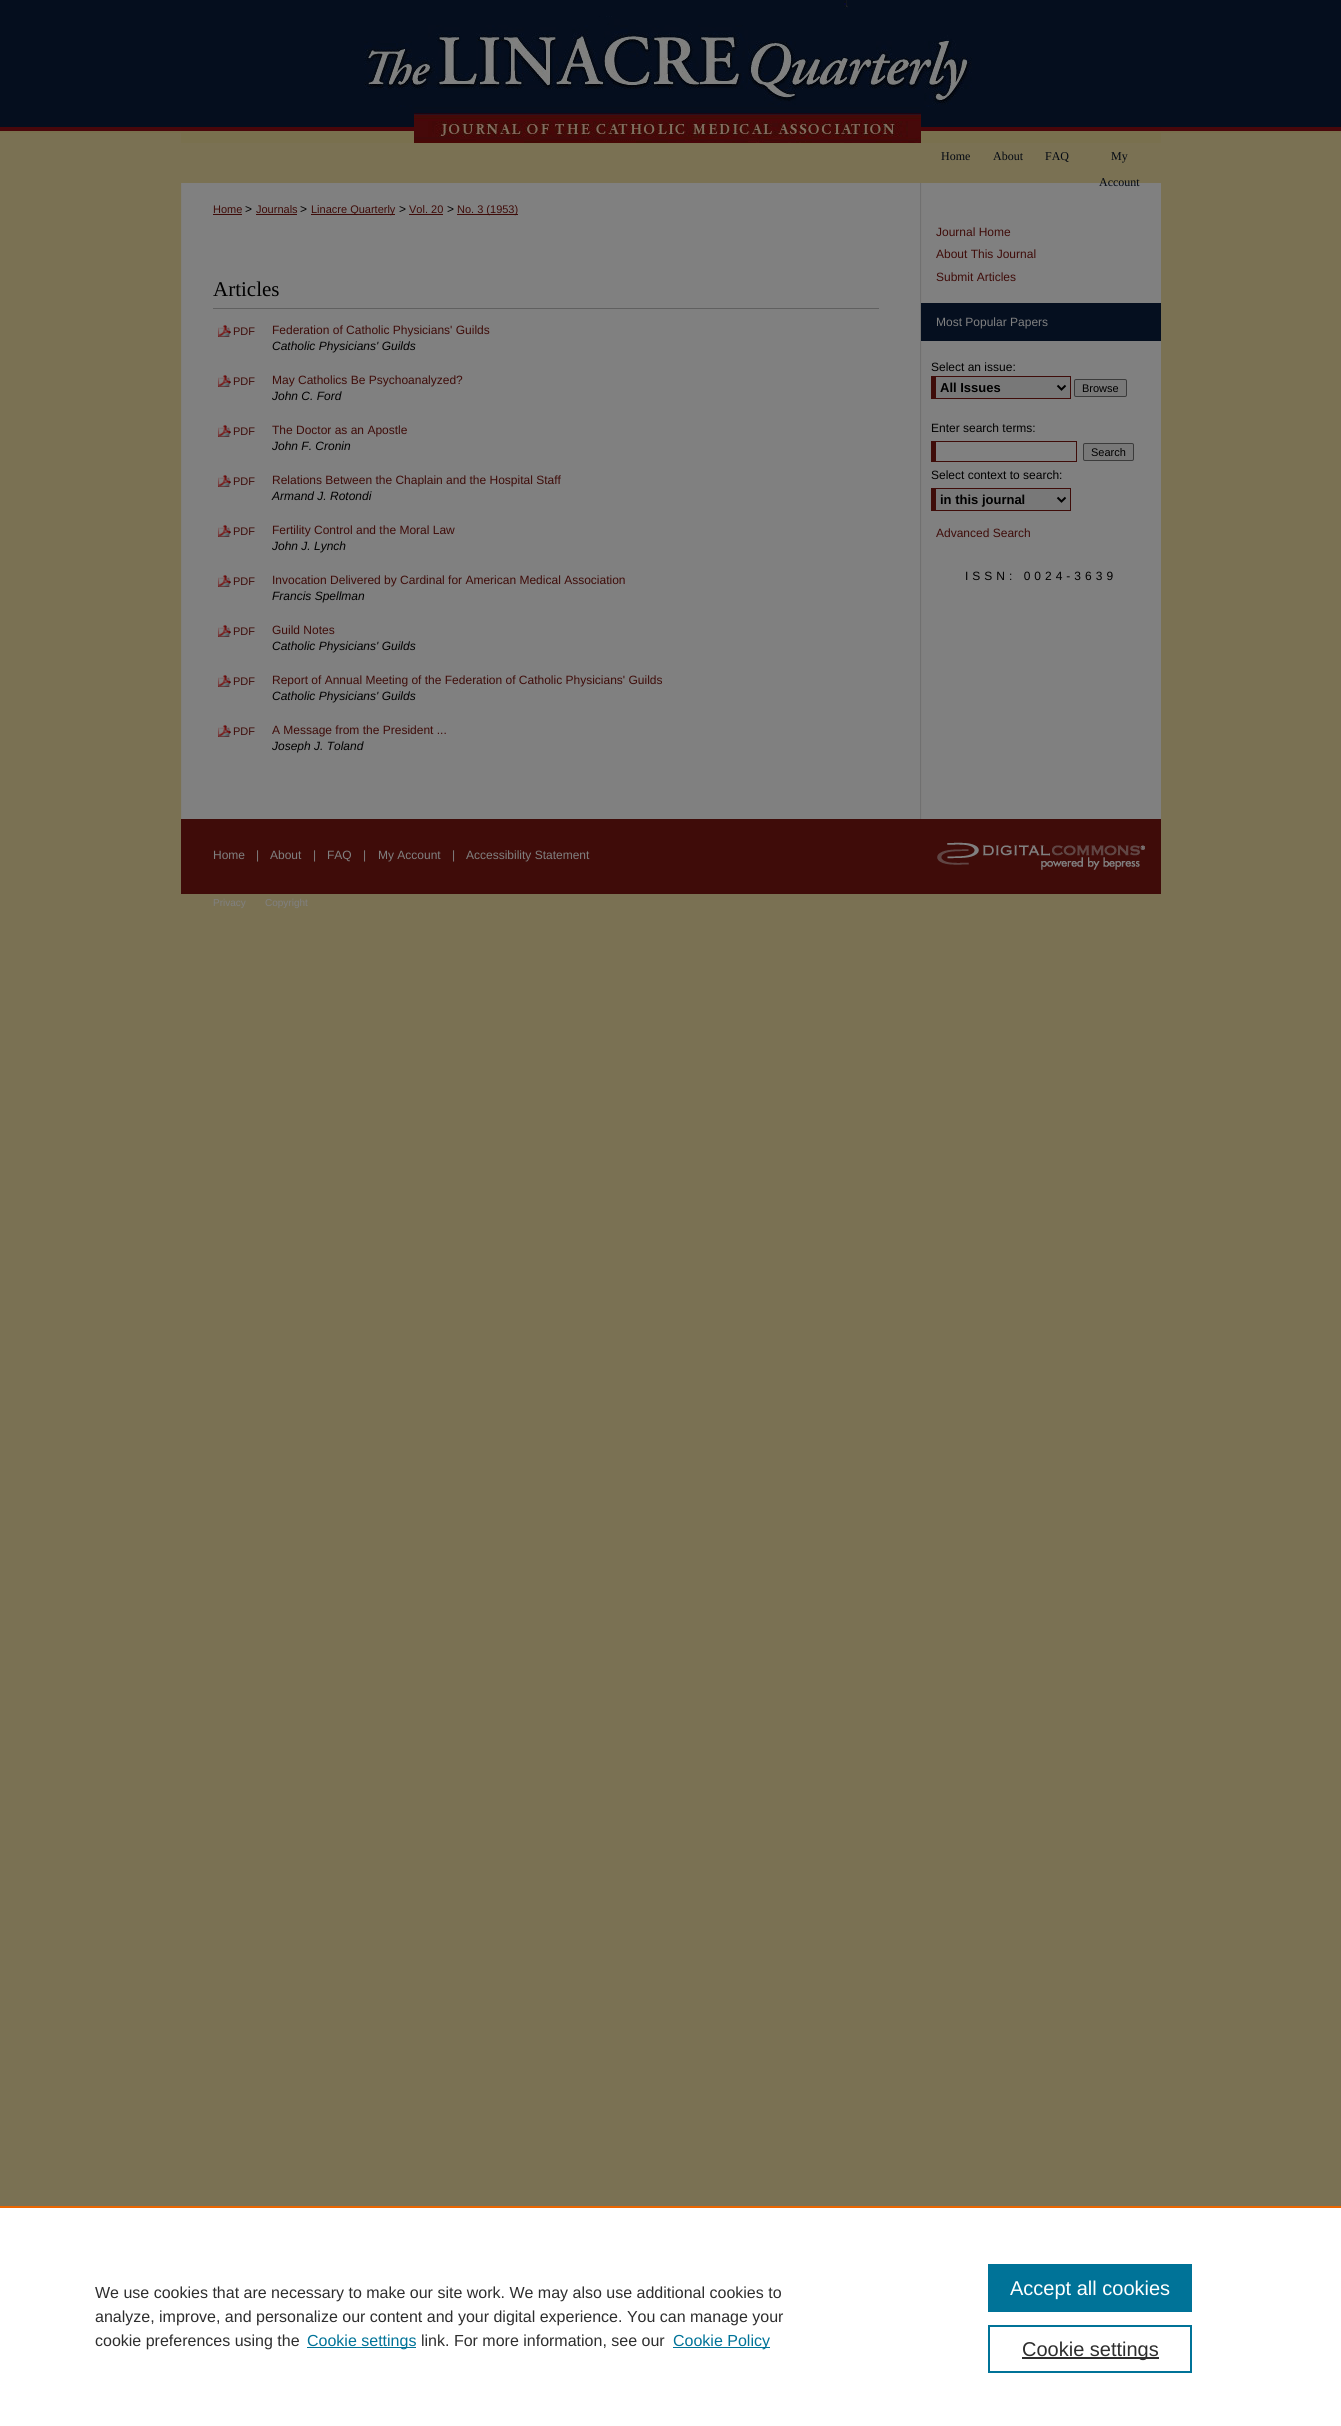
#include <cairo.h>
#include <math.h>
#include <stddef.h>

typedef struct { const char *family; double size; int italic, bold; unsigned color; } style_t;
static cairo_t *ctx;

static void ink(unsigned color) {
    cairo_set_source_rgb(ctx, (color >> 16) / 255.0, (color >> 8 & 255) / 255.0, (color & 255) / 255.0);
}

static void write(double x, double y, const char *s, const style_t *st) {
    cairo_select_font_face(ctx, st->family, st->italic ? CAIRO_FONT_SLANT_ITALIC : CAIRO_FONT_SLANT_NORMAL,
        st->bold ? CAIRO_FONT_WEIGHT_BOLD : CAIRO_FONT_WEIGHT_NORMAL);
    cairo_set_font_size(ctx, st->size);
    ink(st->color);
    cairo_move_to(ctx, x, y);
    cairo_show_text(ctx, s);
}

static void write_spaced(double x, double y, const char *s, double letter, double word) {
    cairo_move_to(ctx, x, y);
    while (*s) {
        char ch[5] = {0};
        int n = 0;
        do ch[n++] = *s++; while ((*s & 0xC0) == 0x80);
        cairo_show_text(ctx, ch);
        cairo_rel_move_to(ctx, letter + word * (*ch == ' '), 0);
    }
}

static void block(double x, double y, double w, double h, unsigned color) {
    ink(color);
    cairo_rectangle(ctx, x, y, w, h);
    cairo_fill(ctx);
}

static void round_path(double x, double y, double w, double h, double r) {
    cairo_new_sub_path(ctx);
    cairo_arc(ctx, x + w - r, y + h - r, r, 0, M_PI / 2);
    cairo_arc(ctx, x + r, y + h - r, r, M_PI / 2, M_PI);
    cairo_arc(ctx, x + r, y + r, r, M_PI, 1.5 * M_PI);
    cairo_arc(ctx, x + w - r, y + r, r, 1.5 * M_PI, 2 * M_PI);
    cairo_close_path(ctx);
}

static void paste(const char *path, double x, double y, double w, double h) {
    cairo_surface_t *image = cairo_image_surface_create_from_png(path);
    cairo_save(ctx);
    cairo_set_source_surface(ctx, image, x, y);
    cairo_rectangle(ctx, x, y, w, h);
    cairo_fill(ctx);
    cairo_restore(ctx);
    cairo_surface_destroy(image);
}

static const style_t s1 = {"Liberation Serif", 12, 0, 0, 0x030912};
static const style_t s2 = {"Liberation Sans", 11, 0, 0, 0x3f0c09};
static const style_t s3 = {"Liberation Sans", 12, 0, 0, 0x000000};
static const style_t s4 = {"Liberation Serif", 21, 0, 0, 0x000000};
static const style_t s5 = {"Liberation Sans", 12, 0, 0, 0x3f0c09};
static const style_t s6 = {"Liberation Sans", 12, 1, 0, 0x000000};
static const style_t s7 = {"Liberation Sans", 12, 0, 0, 0x808080};
static const style_t s8 = {"Liberation Sans", 13, 0, 1, 0x000000};
static const style_t s9 = {"Liberation Sans", 11, 0, 0, 0x000000};
static const style_t s10 = {"Liberation Sans", 10, 0, 0, 0x808080};
static const style_t s11 = {"Liberation Sans", 16, 0, 0, 0x2e2e2e};
static const style_t s12 = {"Liberation Sans", 16, 0, 0, 0x007398};
static const style_t s13 = {"Liberation Sans", 20, 0, 0, 0xffffff};
static const style_t s14 = {"Liberation Sans", 20, 0, 0, 0x2e2e2e};

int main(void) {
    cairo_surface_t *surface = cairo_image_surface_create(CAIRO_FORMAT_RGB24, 1341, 2426);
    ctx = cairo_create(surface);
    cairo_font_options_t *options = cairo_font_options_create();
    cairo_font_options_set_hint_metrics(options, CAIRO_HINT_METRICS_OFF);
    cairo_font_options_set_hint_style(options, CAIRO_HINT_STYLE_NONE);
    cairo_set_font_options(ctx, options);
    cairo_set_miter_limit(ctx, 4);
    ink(0x7a7153);
    cairo_paint(ctx);
    paste("pic1.png", 0, 0, 1341, 133);
    paste("pic2.png", 181, 0, 980, 143);
    write(941, 160, "Home", &s1);
    write(993, 160, "About", &s1);
    write(1045, 160, "FAQ", &s1);
    write(1111, 160, "My", &s1);
    block(922, 183, 239, 636, 0x808080);
    write(1099, 186, "Account", &s1);
    paste("pic3.png", 181, 183, 741, 636);
    write(213, 213, "Home", &s2);
    block(213, 214, 29, 1, 0x3f0c09);
    write(245, 213, ">", &s3);
    write(256, 213, "Journals", &s2);
    block(256, 214, 41, 1, 0x3f0c09);
    write(300, 213, ">", &s3);
    block(311, 214, 84, 1, 0x3f0c09);
    write(311, 213, "Linacre Quarterly", &s2);
    write(399, 213, ">", &s3);
    write(409, 213, "Vol. 20", &s2);
    block(409, 214, 34, 1, 0x3f0c09);
    write(447, 213, ">", &s3);
    block(457, 214, 61, 1, 0x3f0c09);
    write(457, 213, "No. 3 (1953)", &s2);
    block(213, 308, 666, 1, 0x606060);
    write(213, 296, "Articles", &s4);
    paste("pic4.png", 218, 325, 13, 12);
    write(233, 335, "PDF", &s2);
    write(272, 334, "Federation of Catholic Physicians' Guilds", &s5);
    write(272, 350, "Catholic Physicians' Guilds", &s6);
    paste("pic4.png", 218, 375, 13, 12);
    write(233, 385, "PDF", &s2);
    write(272, 384, "May Catholics Be Psychoanalyzed?", &s5);
    write(272, 400, "John C. Ford", &s6);
    paste("pic4.png", 218, 425, 13, 12);
    write(233, 435, "PDF", &s2);
    write(272, 434, "The Doctor as an Apostle", &s5);
    write(272, 450, "John F. Cronin", &s6);
    paste("pic4.png", 218, 475, 13, 12);
    write(233, 485, "PDF", &s2);
    write(272, 484, "Relations Between the Chaplain and the Hospital Staff", &s5);
    write(272, 500, "Armand J. Rotondi", &s6);
    paste("pic4.png", 218, 525, 13, 12);
    write(233, 535, "PDF", &s2);
    write(272, 534, "Fertility Control and the Moral Law", &s5);
    write(272, 550, "John J. Lynch", &s6);
    paste("pic4.png", 218, 575, 13, 12);
    write(233, 585, "PDF", &s2);
    write(272, 584, "Invocation Delivered by Cardinal for American Medical Association", &s5);
    write(272, 600, "Francis Spellman", &s6);
    paste("pic4.png", 218, 625, 13, 12);
    write(233, 635, "PDF", &s2);
    write(272, 634, "Guild Notes", &s5);
    write(272, 650, "Catholic Physicians' Guilds", &s6);
    paste("pic4.png", 218, 675, 13, 12);
    write(233, 685, "PDF", &s2);
    write(272, 684, "Report of Annual Meeting of the Federation of Catholic Physicians' Guilds", &s5);
    write(272, 700, "Catholic Physicians' Guilds", &s6);
    paste("pic4.png", 218, 725, 13, 12);
    write(233, 735, "PDF", &s2);
    write(272, 734, "A Message from the President ...", &s5);
    write(272, 750, "Joseph J. Toland", &s6);
    write(936, 236, "Journal Home", &s5);
    write(936, 258, "About This Journal", &s5);
    write(936, 281, "Submit Articles", &s5);
    block(921, 302, 1, 1, 0x808080);
    block(921, 303, 240, 38, 0x050f1f);
    block(921, 341, 1, 1, 0x808080);
    write(936, 326, "Most Popular Papers", &s7);
    write(931, 371, "Select an issue:", &s3);
    block(936, 377, 134, 21, 0x787878);
    block(931, 376, 140, 1, 0x3f0c09);
    block(1070, 376, 1, 23, 0x3f0c09);
    block(931, 398, 140, 1, 0x3f0c09);
    block(931, 376, 5, 23, 0x3f0c09);
    cairo_new_path(ctx);
    cairo_move_to(ctx, 1057.5, 385.5);
    cairo_line_to(ctx, 1061.5, 389.5);
    cairo_line_to(ctx, 1065.5, 385.5);
    ink(0x000000);
    cairo_stroke(ctx);
    write(940, 392, "All Issues", &s8);
    ink(0x787878);
    round_path(1074.5, 379.5, 52, 17, 1.5);
    cairo_fill_preserve(ctx);
    ink(0x3b3b3b);
    cairo_set_line_width(ctx, 1);
    cairo_stroke(ctx);
    write(1082, 392, "Browse", &s9);
    write(931, 432, "Enter search terms:", &s3);
    block(931, 441, 146, 1, 0x3f0c09);
    block(1076, 441, 1, 21, 0x3f0c09);
    block(931, 461, 146, 1, 0x3f0c09);
    block(931, 441, 5, 21, 0x3f0c09);
    ink(0x787878);
    round_path(1083.5, 443.5, 50, 17, 1.5);
    cairo_fill_preserve(ctx);
    ink(0x3b3b3b);
    cairo_stroke(ctx);
    write(1091, 456, "Search", &s9);
    write(931, 479, "Select context to search:", &s3);
    block(936, 489, 134, 21, 0x787878);
    block(931, 488, 140, 1, 0x3f0c09);
    block(1070, 488, 1, 23, 0x3f0c09);
    block(931, 510, 140, 1, 0x3f0c09);
    block(931, 488, 5, 23, 0x3f0c09);
    cairo_new_path(ctx);
    cairo_move_to(ctx, 1057.5, 497.5);
    cairo_line_to(ctx, 1061.5, 501.5);
    cairo_line_to(ctx, 1065.5, 497.5);
    ink(0x000000);
    cairo_set_line_width(ctx, 2);
    cairo_stroke(ctx);
    write(940, 504, "in this journal", &s8);
    write(936, 537, "Advanced Search", &s5);
    ink(0x000000);
    write_spaced(965, 580, "ISSN: 0024-3639", 4, 0);
    block(181, 819, 980, 75, 0x3f0c09);
    write(213, 859, "Home", &s7);
    write(256, 859, "|", &s7);
    write(270, 859, "About", &s7);
    write(313, 859, "|", &s7);
    write(327, 859, "FAQ", &s7);
    write(363, 859, "|", &s7);
    write(378, 859, "My Account", &s7);
    write(452, 859, "|", &s7);
    write(466, 859, "Accessibility Statement", &s7);
    paste("pic5.png", 937, 842, 208, 28);
    write(213, 906, "Privacy", &s10);
    write(265, 906, "Copyright", &s10);
    block(0, 2208, 1341, 218, 0xffffff);
    block(0, 2206, 1341, 2, 0xeb6500);
    write(95, 2298, "We use cookies that are necessary to make our site work. We may also use additional cookies to", &s11);
    write(95, 2322, "analyze, improve, and personalize our content and your digital experience. You can manage your", &s11);
    write(95, 2346, "cookie preferences using the", &s11);
    block(307, 2347, 109, 1, 0x007398);
    write(307, 2346, "Cookie settings", &s12);
    write(421, 2346, "link. For more information, see our", &s11);
    block(673, 2347, 97, 1, 0x007398);
    write(673, 2346, "Cookie Policy", &s12);
    block(988, 2264, 204, 48, 0x007398);
    write(1010, 2295, "Accept all cookies", &s13);
    cairo_rectangle(ctx, 989, 2326, 202, 46);
    ink(0x007398);
    cairo_stroke(ctx);
    block(1022, 2357, 137, 2, 0x2e2e2e);
    write(1022, 2356, "Cookie settings", &s14);
    cairo_surface_write_to_png(surface, "screenshot.png");
    cairo_font_options_destroy(options);
    cairo_destroy(ctx);
    cairo_surface_destroy(surface);
    return 0;
}
